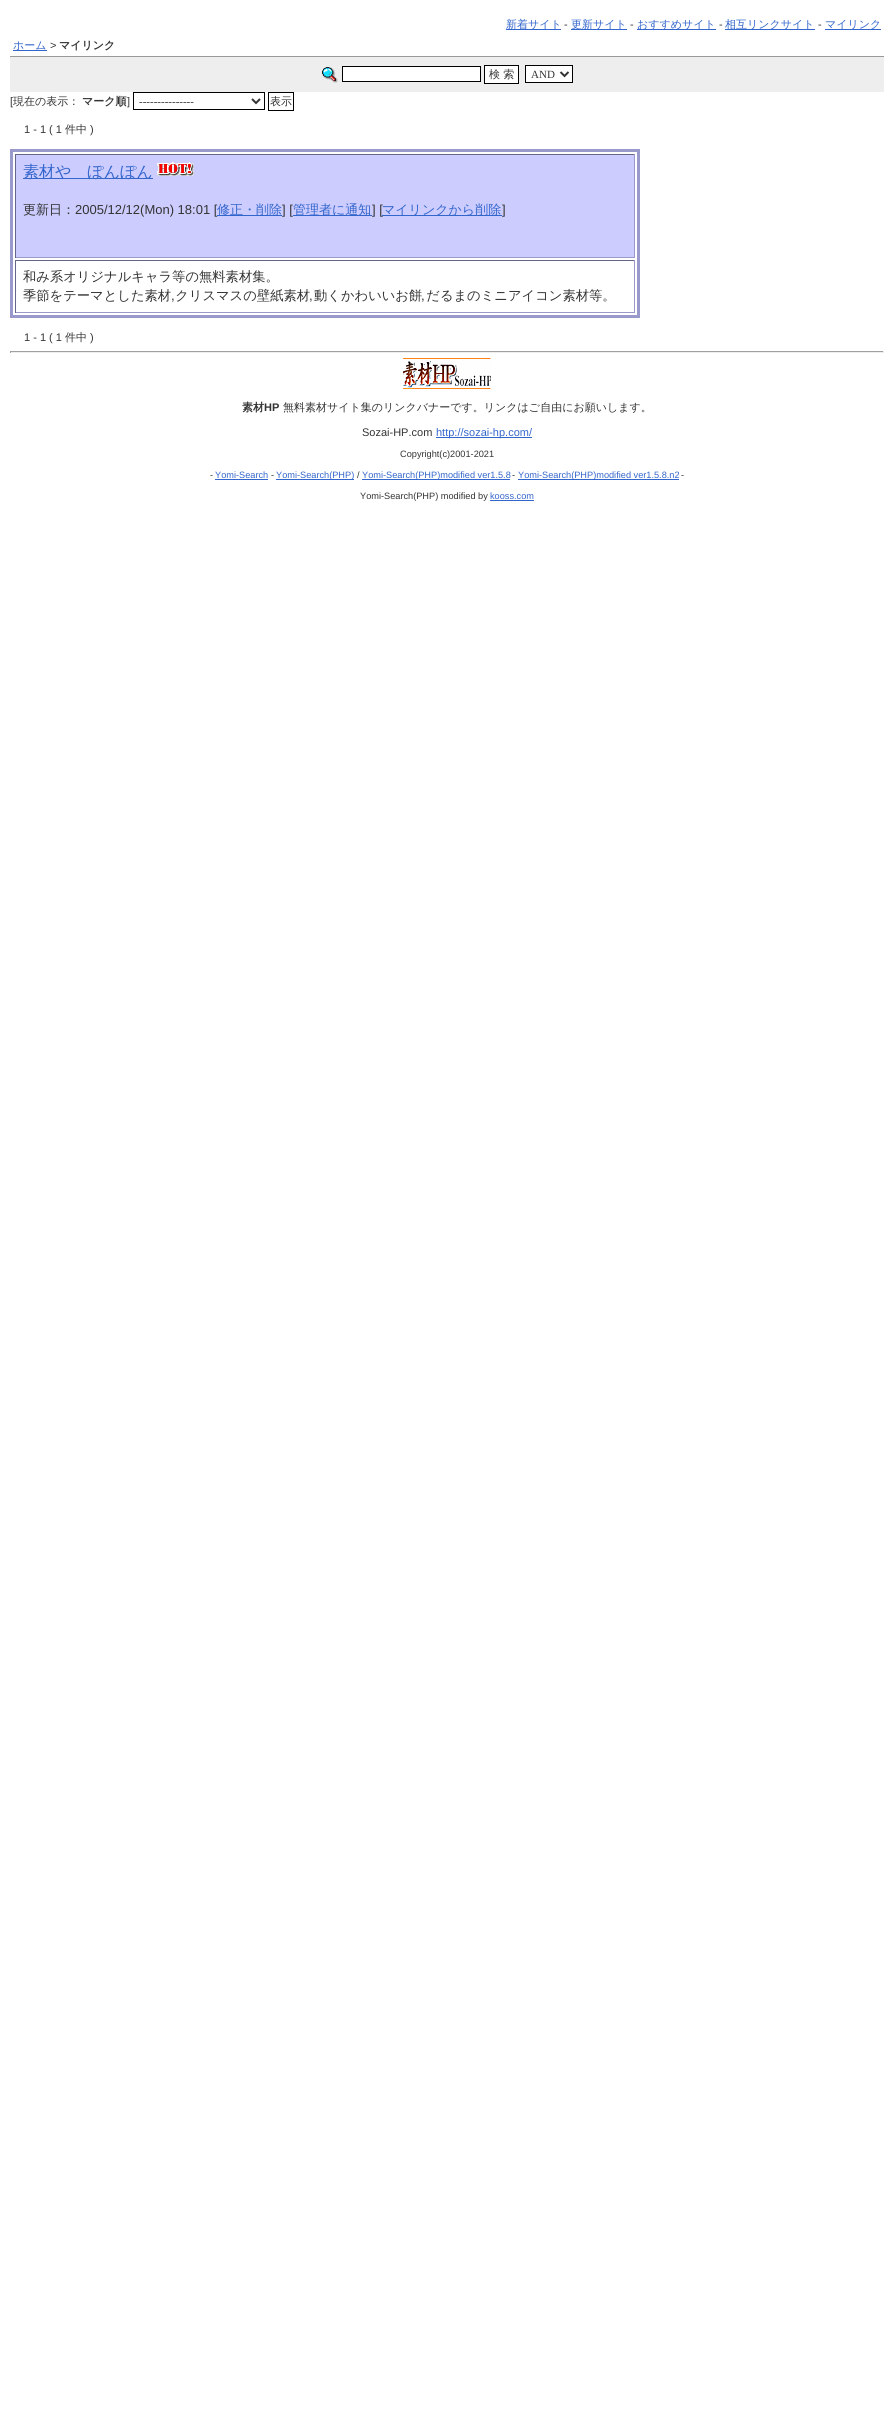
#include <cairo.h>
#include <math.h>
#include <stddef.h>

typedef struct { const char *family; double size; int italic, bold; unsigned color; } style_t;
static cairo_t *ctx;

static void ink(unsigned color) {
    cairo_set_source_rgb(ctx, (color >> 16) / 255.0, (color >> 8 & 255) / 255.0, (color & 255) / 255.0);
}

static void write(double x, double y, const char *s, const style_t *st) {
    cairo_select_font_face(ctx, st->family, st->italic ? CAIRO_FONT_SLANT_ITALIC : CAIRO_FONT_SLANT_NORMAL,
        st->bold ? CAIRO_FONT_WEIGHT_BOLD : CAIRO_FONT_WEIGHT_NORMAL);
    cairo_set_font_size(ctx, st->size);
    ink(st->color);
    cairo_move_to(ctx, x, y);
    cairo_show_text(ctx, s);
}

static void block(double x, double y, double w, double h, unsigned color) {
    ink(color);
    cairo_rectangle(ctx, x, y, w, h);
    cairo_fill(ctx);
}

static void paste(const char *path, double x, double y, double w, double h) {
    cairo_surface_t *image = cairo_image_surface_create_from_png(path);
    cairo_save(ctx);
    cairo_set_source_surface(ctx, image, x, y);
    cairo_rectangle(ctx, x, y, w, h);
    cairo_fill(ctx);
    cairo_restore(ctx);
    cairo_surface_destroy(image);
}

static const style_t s1 = {"WenQuanYi Zen Hei Medium", 11, 0, 0, 0x3366cc};
static const style_t s2 = {"Liberation Sans", 11, 0, 0, 0x333333};
static const style_t s3 = {"WenQuanYi Zen Hei", 11, 0, 1, 0x333333};
static const style_t s4 = {"WenQuanYi Zen Hei Medium", 11, 0, 0, 0x333333};
static const style_t s5 = {"Liberation Serif", 11, 0, 0, 0x333333};
static const style_t s6 = {"WenQuanYi Zen Hei Medium", 16, 0, 0, 0x3366cc};
static const style_t s7 = {"WenQuanYi Zen Hei Medium", 13, 0, 0, 0x333333};
static const style_t s8 = {"Liberation Sans", 13, 0, 0, 0x333333};
static const style_t s9 = {"WenQuanYi Zen Hei Medium", 13, 0, 0, 0x3366cc};
static const style_t s10 = {"WenQuanYi Zen Hei Medium", 13.3, 0, 0, 0x333333};
static const style_t s11 = {"Liberation Sans", 13.3, 0, 0, 0x333333};
static const style_t s12 = {"Liberation Sans", 11, 0, 1, 0x333333};
static const style_t s13 = {"Liberation Sans", 11, 0, 0, 0x3366cc};
static const style_t s14 = {"Liberation Sans", 9.2, 0, 0, 0x333333};
static const style_t s15 = {"Liberation Sans", 9.2, 0, 0, 0x3366cc};

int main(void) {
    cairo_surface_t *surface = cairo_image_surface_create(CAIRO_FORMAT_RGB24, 894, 2410);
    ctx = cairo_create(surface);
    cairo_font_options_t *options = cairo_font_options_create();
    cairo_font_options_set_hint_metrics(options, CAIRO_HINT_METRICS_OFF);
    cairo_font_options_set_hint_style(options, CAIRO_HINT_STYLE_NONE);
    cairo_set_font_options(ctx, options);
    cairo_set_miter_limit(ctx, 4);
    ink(0xffffff);
    cairo_paint(ctx);
    block(506, 29, 55, 1, 0x3366cc);
    write(506, 28, "新着サイト", &s1);
    write(564, 28, "-", &s2);
    block(571, 29, 56, 1, 0x3366cc);
    write(571, 28, "更新サイト", &s1);
    write(630, 28, "-", &s2);
    block(637, 29, 79, 1, 0x3366cc);
    write(637, 28, "おすすめサイト", &s1);
    write(719, 28, "-", &s2);
    block(725, 29, 90, 1, 0x3366cc);
    write(725, 28, "相互リンクサイト", &s1);
    write(818, 28, "-", &s2);
    block(825, 29, 56, 1, 0x3366cc);
    write(825, 28, "マイリンク", &s1);
    block(13, 50, 34, 1, 0x3366cc);
    write(13, 49, "ホーム", &s1);
    write(50, 49, ">", &s2);
    write(59, 49, "マイリンク", &s3);
    block(10, 57, 874, 35, 0xeeeeee);
    block(10, 56, 874, 1, 0x999999);
    paste("pic1.png", 322, 67, 16, 16);
    ink(0xffffff);
    cairo_rectangle(ctx, 342.5, 66.5, 138, 15);
    cairo_fill_preserve(ctx);
    ink(0x000000);
    cairo_set_line_width(ctx, 1);
    cairo_stroke(ctx);
    ink(0xffffff);
    cairo_rectangle(ctx, 484.5, 65.5, 34, 18);
    cairo_fill_preserve(ctx);
    ink(0x000000);
    cairo_stroke(ctx);
    write(489, 78, "検 索", &s4);
    ink(0xffffff);
    cairo_rectangle(ctx, 525.5, 65.5, 47, 17);
    cairo_fill_preserve(ctx);
    ink(0x000000);
    cairo_stroke(ctx);
    cairo_new_path(ctx);
    cairo_move_to(ctx, 560.5, 72);
    cairo_line_to(ctx, 564.5, 76);
    cairo_line_to(ctx, 568.5, 72);
    ink(0x333333);
    cairo_set_line_width(ctx, 2);
    cairo_stroke(ctx);
    write(531, 78, "AND", &s5);
    write(10, 105, "[", &s2);
    write(13, 105, "現在の表示：", &s4);
    write(82, 105, "マーク順", &s3);
    write(127, 105, "]", &s2);
    cairo_rectangle(ctx, 133.5, 92.5, 131, 17);
    ink(0x000000);
    cairo_set_line_width(ctx, 1);
    cairo_stroke(ctx);
    cairo_new_path(ctx);
    cairo_move_to(ctx, 252, 99);
    cairo_line_to(ctx, 256, 103);
    cairo_line_to(ctx, 260, 99);
    ink(0x333333);
    cairo_set_line_width(ctx, 2);
    cairo_stroke(ctx);
    write(139, 105, "---------------", &s5);
    cairo_rectangle(ctx, 268.5, 92.5, 25, 18);
    ink(0x000000);
    cairo_set_line_width(ctx, 1);
    cairo_stroke(ctx);
    write(270, 105, "表示", &s4);
    write(24, 133, "1 - 1 ( 1", &s2);
    write(65, 133, "件中", &s4);
    write(90, 133, ")", &s2);
    cairo_rectangle(ctx, 11.5, 150.5, 627, 166);
    ink(0x9999cc);
    cairo_set_line_width(ctx, 3);
    cairo_stroke(ctx);
    block(16, 155, 618, 102, 0xccccff);
    block(15, 154, 620, 1, 0x666688);
    block(634, 154, 1, 104, 0x9999cc);
    block(15, 257, 620, 1, 0x9999cc);
    block(15, 154, 1, 104, 0x666688);
    block(23, 178, 130, 1, 0x3366cc);
    write(23, 177, "素材や　ぽんぽん", &s6);
    paste("pic2.png", 157, 162, 37, 14);
    write(23, 214, "更新日：", &s7);
    write(75, 214, "2005/12/12(Mon) 18:01 [", &s8);
    block(217, 215, 65, 1, 0x3366cc);
    write(217, 214, "修正・削除", &s9);
    write(282, 214, "] [", &s8);
    block(293, 215, 79, 1, 0x3366cc);
    write(293, 214, "管理者に通知", &s9);
    write(372, 214, "] [", &s8);
    block(382, 215, 120, 1, 0x3366cc);
    write(382, 214, "マイリンクから削除", &s9);
    write(502, 214, "]", &s8);
    block(15, 260, 620, 1, 0x666688);
    block(634, 260, 1, 53, 0x9999cc);
    block(15, 312, 620, 1, 0x9999cc);
    block(15, 260, 1, 53, 0x666688);
    write(23, 281, "和み系オリジナルキャラ等の無料素材集。", &s10);
    write(23, 300, "季節をテーマとした素材 クリスマスの壁紙素材 動くかわいいお餅 だるまのミニアイコン素材等。", &s10);
    write(171, 300, ",", &s11);
    write(309, 300, ",", &s11);
    write(421, 300, ",", &s11);
    write(24, 341, "1 - 1 ( 1", &s2);
    write(65, 341, "件中", &s4);
    write(90, 341, ")", &s2);
    block(10, 351, 874, 1, 0x9f9f9f);
    block(883, 351, 1, 2, 0xeeeeee);
    block(10, 352, 874, 1, 0xeeeeee);
    block(10, 351, 1, 2, 0x9f9f9f);
    paste("pic3.png", 403, 358, 88, 31);
    write(242, 411, "素材", &s3);
    write(264, 411, "HP", &s12);
    write(283, 411, "無料素材サイト集のリンクバナーです。リンクはご自由にお願いします。", &s4);
    write(362, 436, "Sozai-HP.com", &s2);
    block(436, 437, 96, 1, 0x3366cc);
    write(436, 436, "http://sozai-hp.com/", &s13);
    write(400, 457, "Copyright(c)2001-2021", &s14);
    write(210, 478, "-", &s14);
    write(215, 478, "Yomi-Search", &s15);
    block(215, 479, 53, 1, 0x3366cc);
    write(271, 478, "-", &s14);
    block(276, 479, 78, 1, 0x3366cc);
    write(276, 478, "Yomi-Search(PHP)", &s15);
    write(357, 478, "/", &s14);
    block(362, 479, 148, 1, 0x3366cc);
    write(362, 478, "Yomi-Search(PHP)modified ver1.5.8", &s15);
    write(512, 478, "-", &s14);
    block(518, 479, 161, 1, 0x3366cc);
    write(518, 478, "Yomi-Search(PHP)modified ver1.5.8.n2", &s15);
    write(681, 478, "-", &s14);
    write(360, 499, "Yomi-Search(PHP) modified by", &s14);
    write(490, 499, "kooss.com", &s15);
    block(490, 500, 44, 1, 0x3366cc);
    cairo_surface_write_to_png(surface, "screenshot.png");
    cairo_font_options_destroy(options);
    cairo_destroy(ctx);
    cairo_surface_destroy(surface);
    return 0;
}
